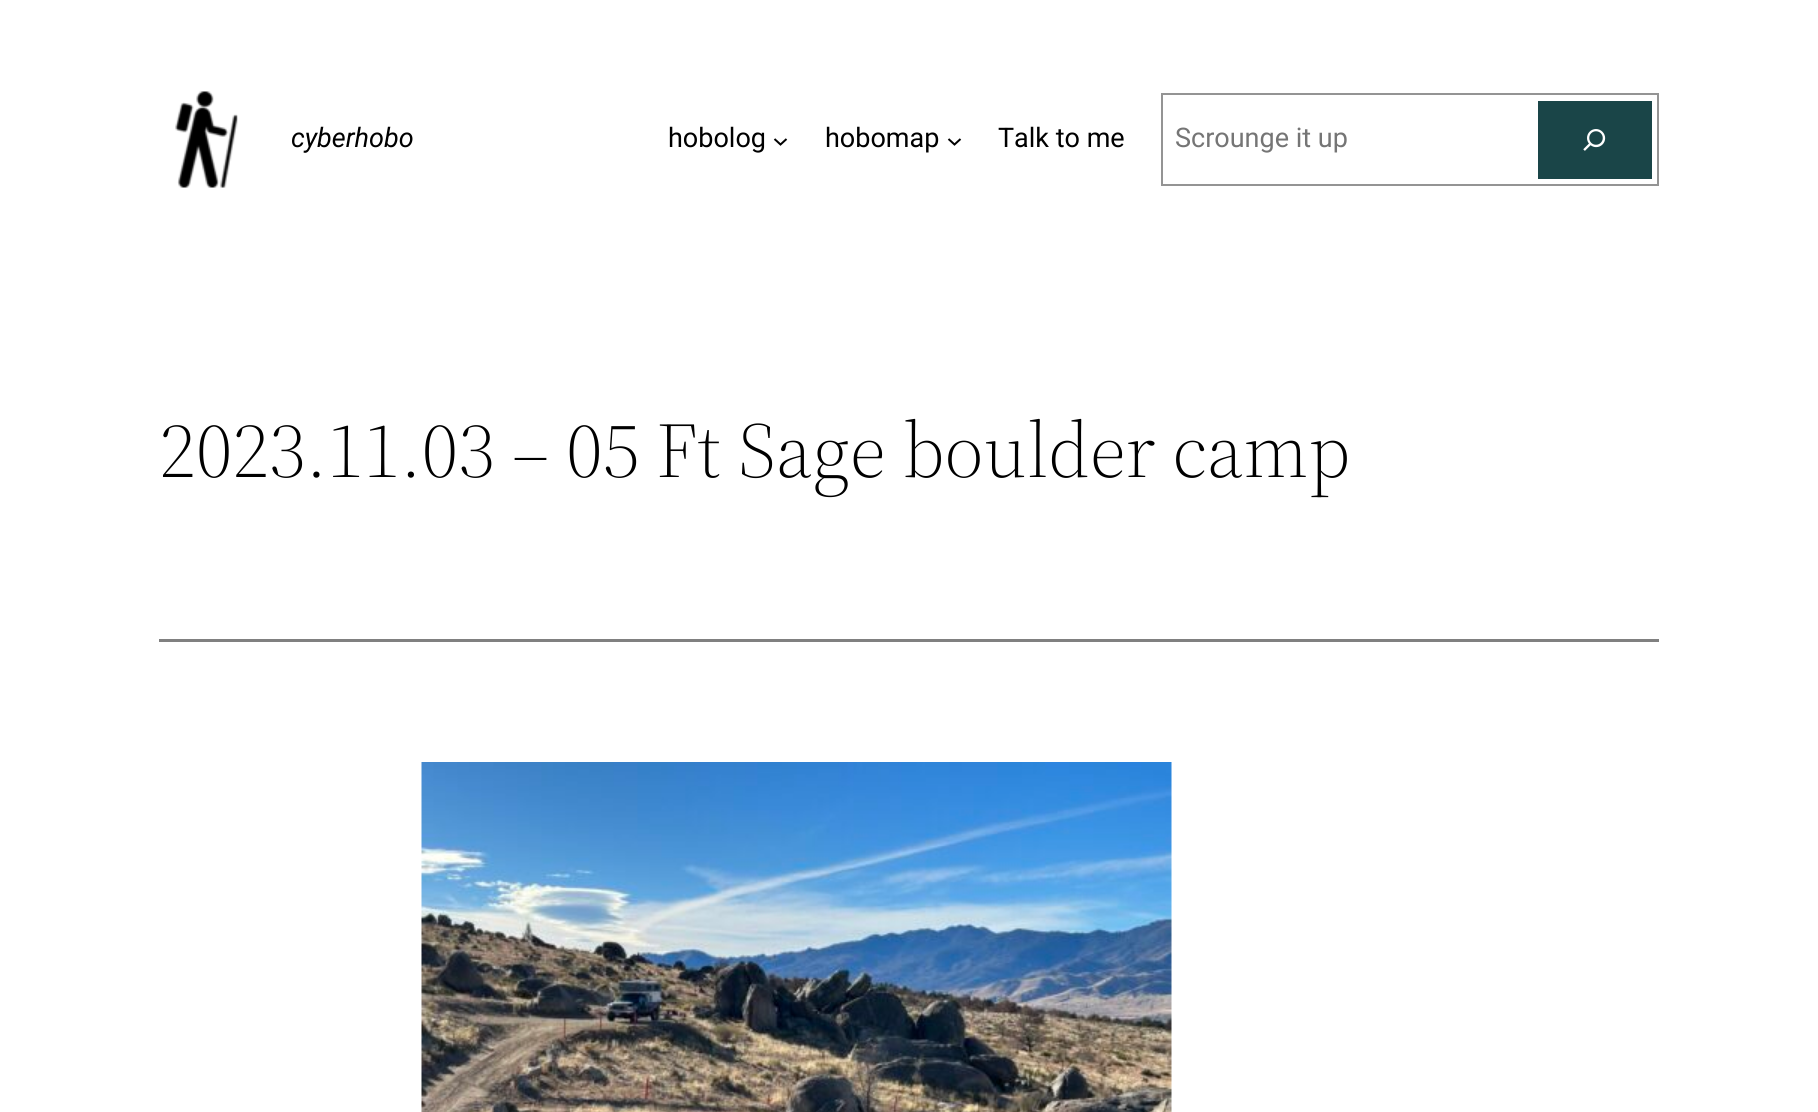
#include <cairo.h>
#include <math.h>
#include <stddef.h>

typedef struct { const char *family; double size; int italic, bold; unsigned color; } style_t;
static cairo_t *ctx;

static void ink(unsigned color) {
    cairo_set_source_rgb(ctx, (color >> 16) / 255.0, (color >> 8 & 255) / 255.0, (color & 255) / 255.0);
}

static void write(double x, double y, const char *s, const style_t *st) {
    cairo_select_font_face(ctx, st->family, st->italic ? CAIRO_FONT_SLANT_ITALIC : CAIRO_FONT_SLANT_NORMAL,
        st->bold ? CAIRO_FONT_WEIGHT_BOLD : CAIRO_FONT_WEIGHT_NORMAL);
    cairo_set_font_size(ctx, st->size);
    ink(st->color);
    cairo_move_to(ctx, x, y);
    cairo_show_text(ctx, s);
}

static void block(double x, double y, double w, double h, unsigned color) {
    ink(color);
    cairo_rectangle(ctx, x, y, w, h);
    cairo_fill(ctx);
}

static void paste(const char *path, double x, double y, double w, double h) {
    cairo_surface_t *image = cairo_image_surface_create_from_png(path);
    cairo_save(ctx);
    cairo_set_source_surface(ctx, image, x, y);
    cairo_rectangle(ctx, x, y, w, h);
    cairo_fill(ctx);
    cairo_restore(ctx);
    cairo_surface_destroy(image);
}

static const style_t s1 = {"Roboto", 27, 1, 0, 0x000000};
static const style_t s2 = {"Roboto", 27, 0, 0, 0x000000};
static const style_t s3 = {"Roboto", 27, 0, 0, 0x757575};
static const style_t s4 = {"Source Serif 4 Light", 78, 0, 0, 0x000000};

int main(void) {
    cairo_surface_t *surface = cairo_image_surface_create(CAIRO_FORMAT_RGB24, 1818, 1112);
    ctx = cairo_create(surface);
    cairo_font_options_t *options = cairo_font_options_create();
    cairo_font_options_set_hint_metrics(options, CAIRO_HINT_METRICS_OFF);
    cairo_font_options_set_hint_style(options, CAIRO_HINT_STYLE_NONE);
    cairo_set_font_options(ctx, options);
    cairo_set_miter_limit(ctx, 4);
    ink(0xffffff);
    cairo_paint(ctx);
    paste("pic1.png", 175, 91, 63, 97);
    write(291, 147, "cyberhobo", &s1);
    write(668, 147, "hobolog", &s2);
    cairo_new_path(ctx);
    cairo_move_to(ctx, 774.5, 139);
    cairo_line_to(ctx, 780.5, 144.5);
    cairo_line_to(ctx, 786.5, 139);
    cairo_stroke(ctx);
    write(825, 147, "hobomap", &s2);
    cairo_new_path(ctx);
    cairo_move_to(ctx, 948.5, 139);
    cairo_line_to(ctx, 954.5, 144.5);
    cairo_line_to(ctx, 960.5, 139);
    cairo_stroke(ctx);
    write(998, 147, "Talk to me", &s2);
    cairo_rectangle(ctx, 1162, 94, 496, 91);
    ink(0x949494);
    cairo_stroke(ctx);
    write(1175, 147, "Scrounge it up", &s3);
    block(1538, 101, 114, 78, 0x1a4548);
    paste("pic2.png", 1583, 129, 23, 22);
    write(159, 477, "2023.11.03 – 05 Ft Sage boulder camp", &s4);
    block(159, 639, 1500, 3, 0x808080);
    paste("pic3.png", 421, 762, 751, 350);
    cairo_surface_write_to_png(surface, "screenshot.png");
    cairo_font_options_destroy(options);
    cairo_destroy(ctx);
    cairo_surface_destroy(surface);
    return 0;
}
